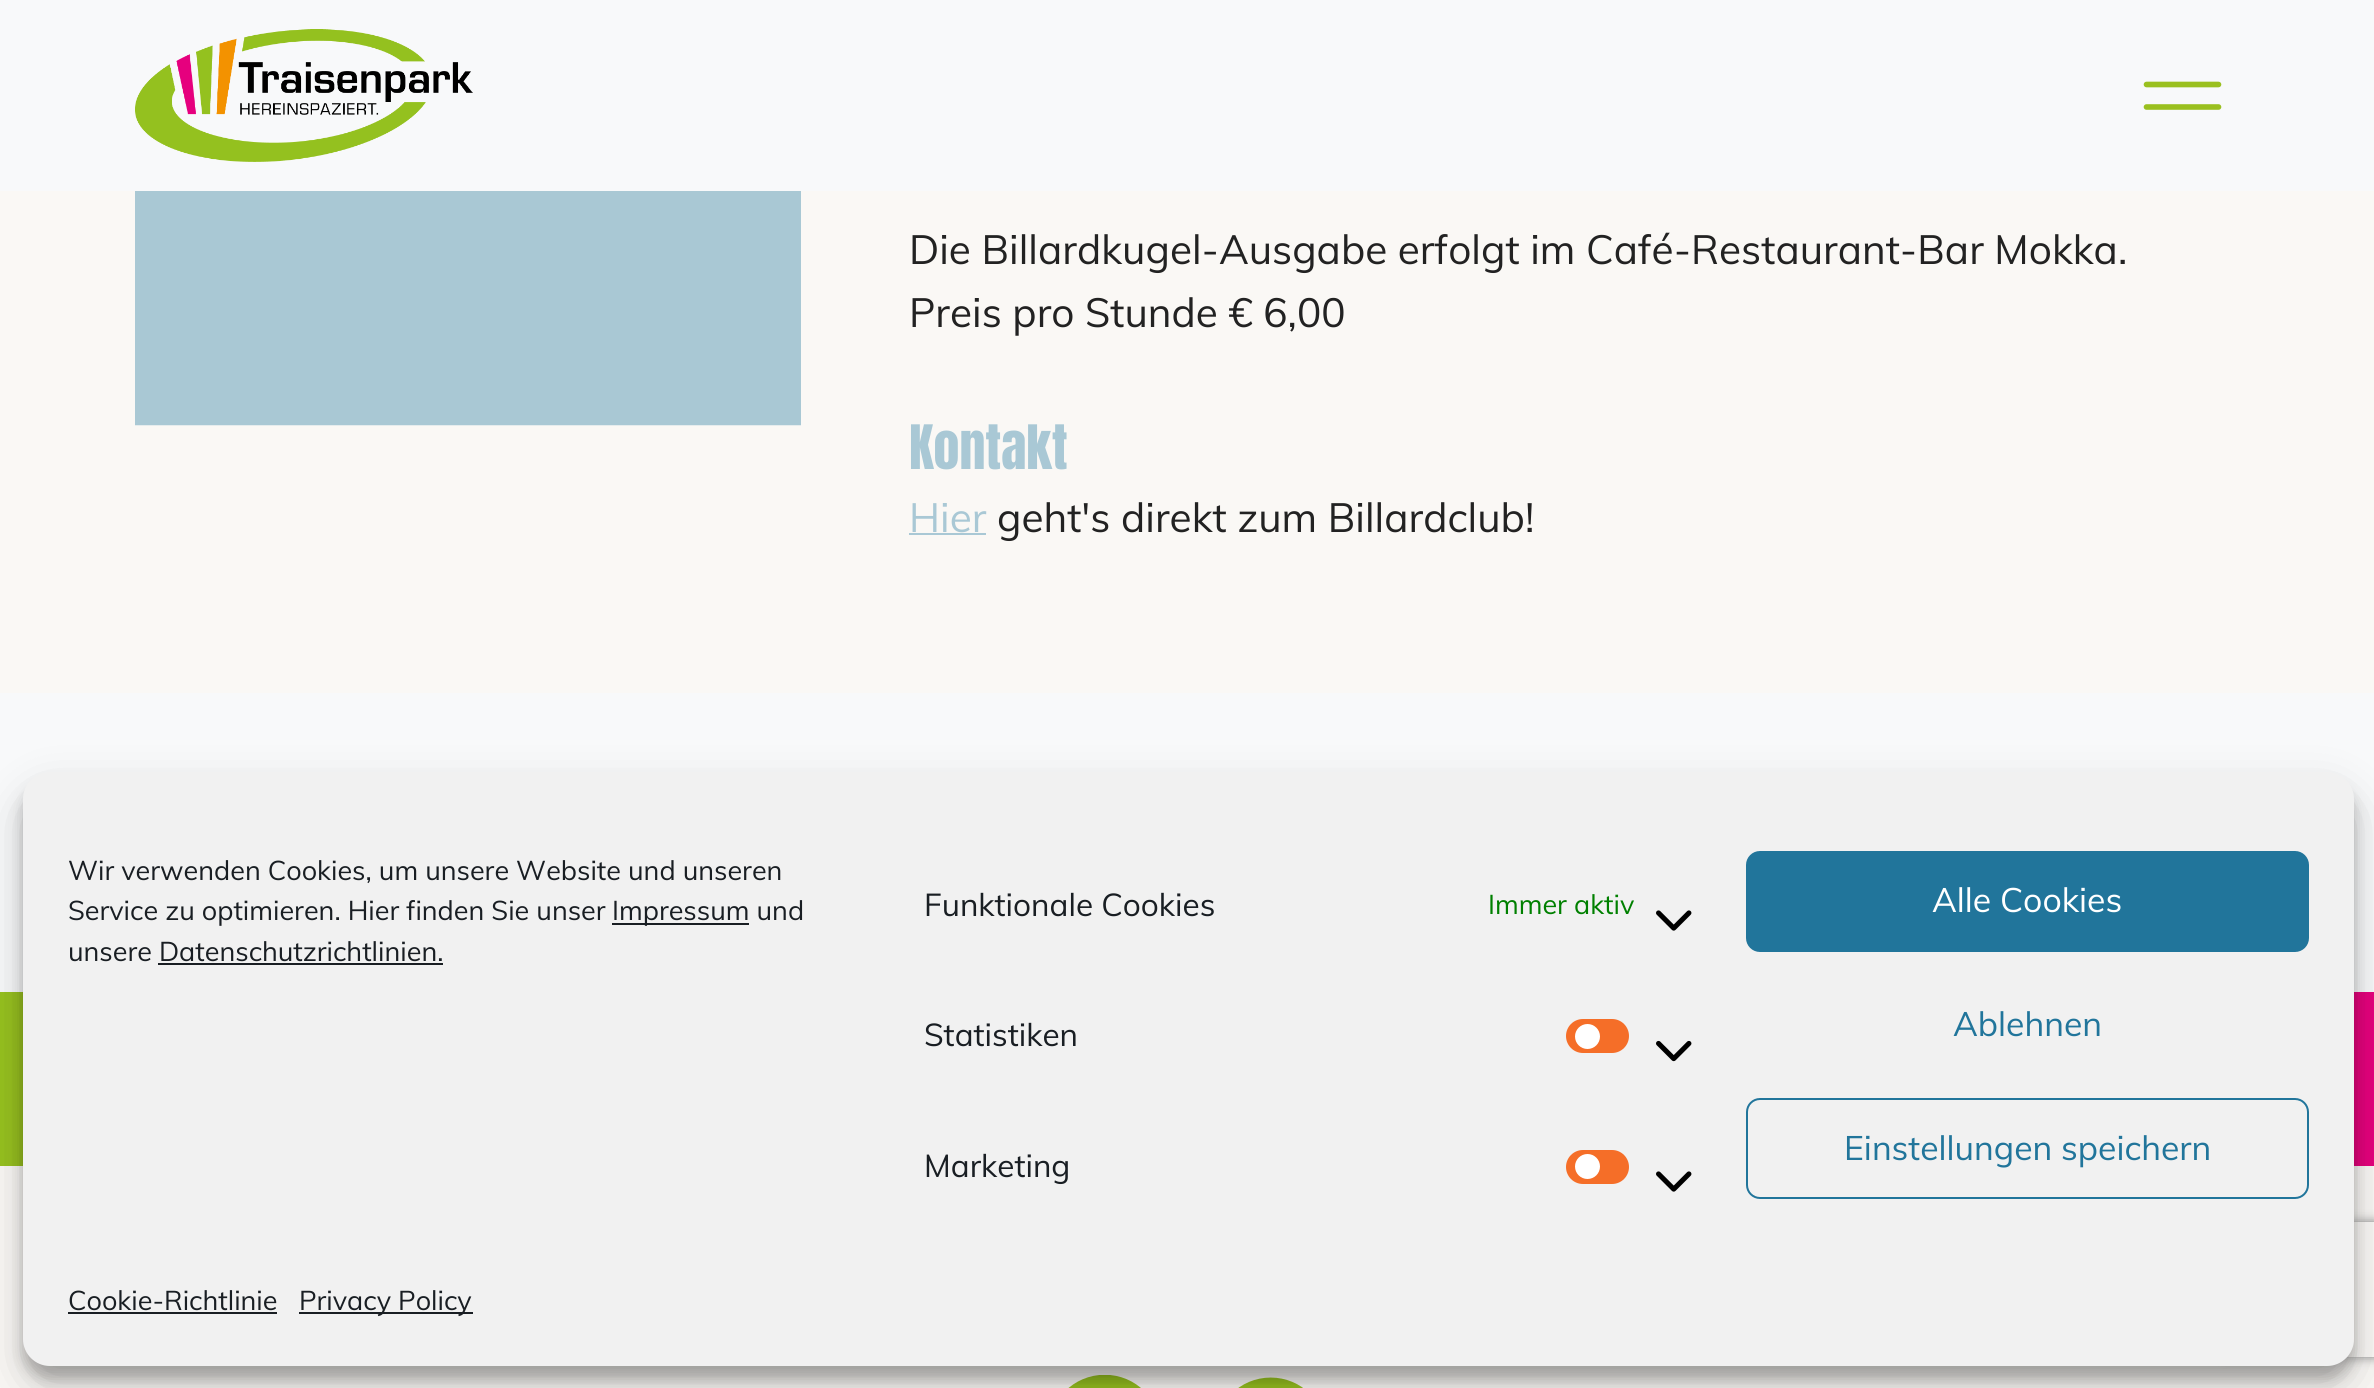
#include <cairo.h>
#include <math.h>
#include <stddef.h>

typedef struct { const char *family; double size; int italic, bold; unsigned color; } style_t;
static cairo_t *ctx;

static void ink(unsigned color) {
    cairo_set_source_rgb(ctx, (color >> 16) / 255.0, (color >> 8 & 255) / 255.0, (color & 255) / 255.0);
}

static void write(double x, double y, const char *s, const style_t *st) {
    cairo_select_font_face(ctx, st->family, st->italic ? CAIRO_FONT_SLANT_ITALIC : CAIRO_FONT_SLANT_NORMAL,
        st->bold ? CAIRO_FONT_WEIGHT_BOLD : CAIRO_FONT_WEIGHT_NORMAL);
    cairo_set_font_size(ctx, st->size);
    ink(st->color);
    cairo_move_to(ctx, x, y);
    cairo_show_text(ctx, s);
}

static void block(double x, double y, double w, double h, unsigned color) {
    ink(color);
    cairo_rectangle(ctx, x, y, w, h);
    cairo_fill(ctx);
}

static void round_path(double x, double y, double w, double h, double r) {
    cairo_new_sub_path(ctx);
    cairo_arc(ctx, x + w - r, y + h - r, r, 0, M_PI / 2);
    cairo_arc(ctx, x + r, y + h - r, r, M_PI / 2, M_PI);
    cairo_arc(ctx, x + r, y + r, r, M_PI, 1.5 * M_PI);
    cairo_arc(ctx, x + w - r, y + r, r, 1.5 * M_PI, 2 * M_PI);
    cairo_close_path(ctx);
}

static void blur_box(double x, double y, double w, double h, double r, double blur, double alpha) {
    cairo_push_group_with_content(ctx, CAIRO_CONTENT_ALPHA);
    cairo_set_operator(ctx, CAIRO_OPERATOR_SOURCE);
    for (int i = 15; i >= -15 && fmin(w, h) + blur * i / 3 > 0; i -= 2) {
        double e = blur * i / 6;
        cairo_set_source_rgba(ctx, 0, 0, 0, alpha * erfc((i - 1) / 8.5) / 2);
        round_path(x - e, y - e, w + 2 * e, h + 2 * e, fmax(0, fmin(r + e + blur * .6, fmin(w, h) / 2 + e)));
        cairo_fill(ctx);
    }
    cairo_pattern_t *soft = cairo_pop_group(ctx);
    cairo_mask(ctx, soft);
    cairo_pattern_destroy(soft);
}

static void paste(const char *path, double x, double y, double w, double h) {
    cairo_surface_t *image = cairo_image_surface_create_from_png(path);
    cairo_save(ctx);
    cairo_set_source_surface(ctx, image, x, y);
    cairo_rectangle(ctx, x, y, w, h);
    cairo_fill(ctx);
    cairo_restore(ctx);
    cairo_surface_destroy(image);
}

static const style_t s1 = {"Muli", 40.5, 0, 0, 0x222222};
static const style_t s2 = {"Anton", 52, 0, 0, 0xa9c8d5};
static const style_t s3 = {"Muli", 40.5, 0, 0, 0xa9c8d5};
static const style_t s4 = {"Muli", 27, 0, 0, 0x191e23};
static const style_t s5 = {"Muli", 31.5, 0, 0, 0x191e23};
static const style_t s6 = {"Muli", 27, 0, 0, 0x008000};
static const style_t s7 = {"Muli", 33.75, 0, 0, 0xffffff};
static const style_t s8 = {"Muli", 33.75, 0, 0, 0x21759b};

int main(void) {
    cairo_surface_t *surface = cairo_image_surface_create(CAIRO_FORMAT_RGB24, 2374, 1388);
    ctx = cairo_create(surface);
    cairo_font_options_t *options = cairo_font_options_create();
    cairo_font_options_set_hint_metrics(options, CAIRO_HINT_METRICS_OFF);
    cairo_font_options_set_hint_style(options, CAIRO_HINT_STYLE_NONE);
    cairo_set_font_options(ctx, options);
    cairo_set_miter_limit(ctx, 4);
    cairo_pattern_t *gradient;
    ink(0xfaf8f5);
    cairo_paint(ctx);
    block(0, 0, 2374, 191, 0xf8f9fa);
    paste("pic1.png", 135, 29, 338, 133);
    cairo_new_path(ctx);
    cairo_move_to(ctx, 2146.5, 84.5);
    cairo_line_to(ctx, 2218.5, 84.5);
    ink(0x9ac01f);
    cairo_set_line_width(ctx, 5.6);
    cairo_set_line_cap(ctx, CAIRO_LINE_CAP_ROUND);
    cairo_stroke(ctx);
    cairo_new_path(ctx);
    cairo_move_to(ctx, 2146.5, 107);
    cairo_line_to(ctx, 2218.5, 107);
    cairo_stroke(ctx);
    paste("pic2.png", 135, 191, 666, 235);
    write(909, 264, "Die Billardkugel-Ausgabe erfolgt im Café-Restaurant-Bar Mokka.", &s1);
    write(909, 327, "Preis pro Stunde € 6,00", &s1);
    write(909, 469, "Kontakt", &s2);
    write(909, 532, "Hier", &s3);
    block(909, 533, 77, 2, 0xa9c8d5);
    write(997, 532, "geht's direkt zum Billardclub!", &s1);
    block(0, 693, 2374, 299, 0xf8f9fa);
    gradient = cairo_pattern_create_linear(0, 1079, 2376, 1079);
    cairo_pattern_add_color_stop_rgba(gradient, 0, 0.588, 0.757, 0.122, 1);
    cairo_pattern_add_color_stop_rgba(gradient, 0.49, 0.953, 0.573, 0, 1);
    cairo_pattern_add_color_stop_rgba(gradient, 1, 0.902, 0, 0.494, 1);
    cairo_set_source(ctx, gradient);
    cairo_pattern_destroy(gradient);
    cairo_rectangle(ctx, 0, 992, 2374, 174);
    cairo_fill(ctx);
    paste("pic3.png", 1068, 1375, 73, 13);
    paste("pic4.png", 1238, 1377, 65, 11);
    ink(0x000000);
    blur_box(23, 785, 2331, 594, 27, 7, 0.23);
    blur_box(23, 794, 2331, 594, 27, 22.5, 0.19);
    cairo_save(ctx);
    cairo_set_fill_rule(ctx, CAIRO_FILL_RULE_EVEN_ODD);
    cairo_new_path(ctx);
    cairo_move_to(ctx, 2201, 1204);
    cairo_line_to(ctx, 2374, 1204);
    cairo_line_to(ctx, 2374, 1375);
    cairo_line_to(ctx, 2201, 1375);
    cairo_close_path(ctx);
    cairo_move_to(ctx, 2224, 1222);
    cairo_line_to(ctx, 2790, 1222);
    cairo_curve_to(ctx, 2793, 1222, 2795, 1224, 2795, 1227);
    cairo_line_to(ctx, 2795, 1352);
    cairo_curve_to(ctx, 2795, 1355, 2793, 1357, 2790, 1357);
    cairo_line_to(ctx, 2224, 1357);
    cairo_curve_to(ctx, 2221, 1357, 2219, 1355, 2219, 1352);
    cairo_line_to(ctx, 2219, 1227);
    cairo_curve_to(ctx, 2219, 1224, 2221, 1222, 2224, 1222);
    cairo_close_path(ctx);
    cairo_clip(ctx);
    ink(0x808080);
    blur_box(2219, 1222, 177, 135, 5, 5.5, 1);
    cairo_restore(ctx);
    ink(0xf1f1f1);
    round_path(23, 772, 2331, 594, 27);
    cairo_fill(ctx);
    write(68, 880, "Wir verwenden Cookies, um unsere Website und unseren", &s4);
    write(68, 920, "Service zu optimieren. Hier finden Sie unser", &s4);
    block(612, 923, 137, 2, 0x191e23);
    write(612, 920, "Impressum und", &s4);
    write(68, 961, "unsere Datenschutzrichtlinien.", &s4);
    block(158, 963, 285, 2, 0x191e23);
    write(924, 916, "Funktionale Cookies", &s5);
    write(1488, 914, "Immer aktiv", &s6);
    paste("pic5.png", 1656, 910, 36, 21);
    write(924, 1046, "Statistiken", &s5);
    ink(0xf56e28);
    round_path(1566, 1019, 63, 34, 17);
    cairo_fill(ctx);
    ink(0xffffff);
    cairo_arc(ctx, 1587.5, 1036.5, 12.5, 0, 2 * M_PI);
    cairo_fill(ctx);
    paste("pic6.png", 1656, 1040, 36, 22);
    write(924, 1177, "Marketing", &s5);
    ink(0xf56e28);
    round_path(1566, 1150, 63, 34, 17);
    cairo_fill(ctx);
    ink(0xffffff);
    cairo_arc(ctx, 1587.5, 1166.5, 12.5, 0, 2 * M_PI);
    cairo_fill(ctx);
    paste("pic5.png", 1656, 1171, 36, 21);
    ink(0x21759b);
    round_path(1747, 852, 561, 99, 13);
    cairo_fill_preserve(ctx);
    cairo_set_line_width(ctx, 2);
    cairo_set_line_cap(ctx, CAIRO_LINE_CAP_BUTT);
    cairo_stroke(ctx);
    write(1932, 912, "Alle Cookies", &s7);
    write(1953, 1036, "Ablehnen", &s8);
    round_path(1747, 1099, 561, 99, 13);
    cairo_stroke(ctx);
    write(1844, 1160, "Einstellungen speichern", &s8);
    write(68, 1310, "Cookie-Richtlinie", &s4);
    block(68, 1312, 209, 2, 0x191e23);
    block(299, 1312, 174, 2, 0x191e23);
    write(299, 1310, "Privacy Policy", &s4);
    cairo_surface_write_to_png(surface, "screenshot.png");
    cairo_font_options_destroy(options);
    cairo_destroy(ctx);
    cairo_surface_destroy(surface);
    return 0;
}
